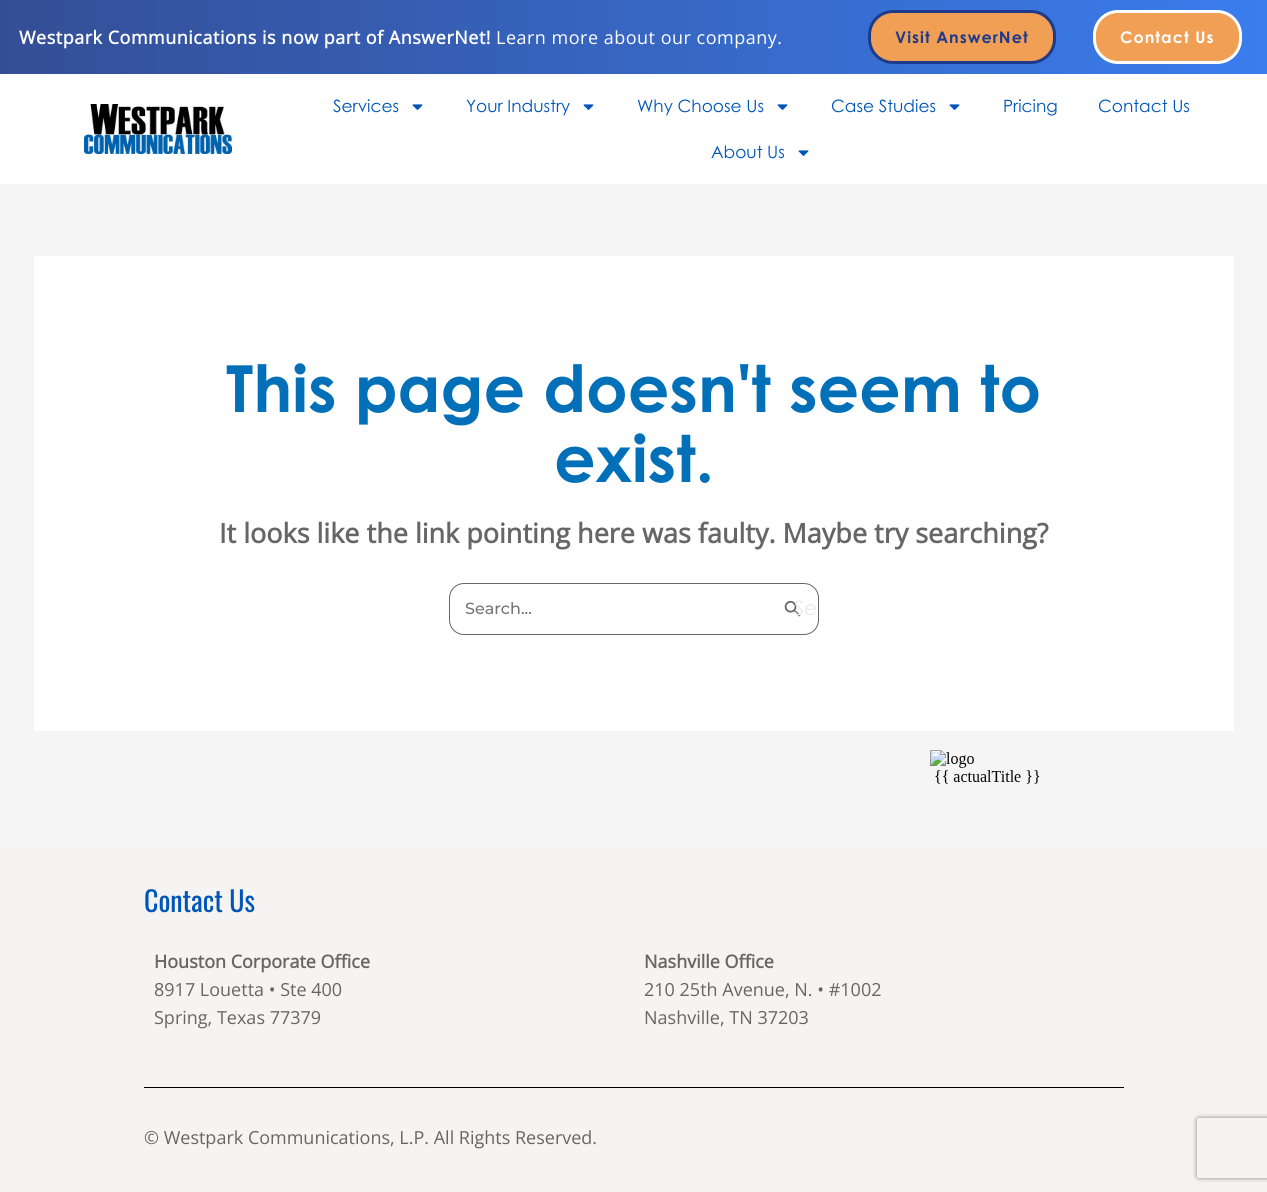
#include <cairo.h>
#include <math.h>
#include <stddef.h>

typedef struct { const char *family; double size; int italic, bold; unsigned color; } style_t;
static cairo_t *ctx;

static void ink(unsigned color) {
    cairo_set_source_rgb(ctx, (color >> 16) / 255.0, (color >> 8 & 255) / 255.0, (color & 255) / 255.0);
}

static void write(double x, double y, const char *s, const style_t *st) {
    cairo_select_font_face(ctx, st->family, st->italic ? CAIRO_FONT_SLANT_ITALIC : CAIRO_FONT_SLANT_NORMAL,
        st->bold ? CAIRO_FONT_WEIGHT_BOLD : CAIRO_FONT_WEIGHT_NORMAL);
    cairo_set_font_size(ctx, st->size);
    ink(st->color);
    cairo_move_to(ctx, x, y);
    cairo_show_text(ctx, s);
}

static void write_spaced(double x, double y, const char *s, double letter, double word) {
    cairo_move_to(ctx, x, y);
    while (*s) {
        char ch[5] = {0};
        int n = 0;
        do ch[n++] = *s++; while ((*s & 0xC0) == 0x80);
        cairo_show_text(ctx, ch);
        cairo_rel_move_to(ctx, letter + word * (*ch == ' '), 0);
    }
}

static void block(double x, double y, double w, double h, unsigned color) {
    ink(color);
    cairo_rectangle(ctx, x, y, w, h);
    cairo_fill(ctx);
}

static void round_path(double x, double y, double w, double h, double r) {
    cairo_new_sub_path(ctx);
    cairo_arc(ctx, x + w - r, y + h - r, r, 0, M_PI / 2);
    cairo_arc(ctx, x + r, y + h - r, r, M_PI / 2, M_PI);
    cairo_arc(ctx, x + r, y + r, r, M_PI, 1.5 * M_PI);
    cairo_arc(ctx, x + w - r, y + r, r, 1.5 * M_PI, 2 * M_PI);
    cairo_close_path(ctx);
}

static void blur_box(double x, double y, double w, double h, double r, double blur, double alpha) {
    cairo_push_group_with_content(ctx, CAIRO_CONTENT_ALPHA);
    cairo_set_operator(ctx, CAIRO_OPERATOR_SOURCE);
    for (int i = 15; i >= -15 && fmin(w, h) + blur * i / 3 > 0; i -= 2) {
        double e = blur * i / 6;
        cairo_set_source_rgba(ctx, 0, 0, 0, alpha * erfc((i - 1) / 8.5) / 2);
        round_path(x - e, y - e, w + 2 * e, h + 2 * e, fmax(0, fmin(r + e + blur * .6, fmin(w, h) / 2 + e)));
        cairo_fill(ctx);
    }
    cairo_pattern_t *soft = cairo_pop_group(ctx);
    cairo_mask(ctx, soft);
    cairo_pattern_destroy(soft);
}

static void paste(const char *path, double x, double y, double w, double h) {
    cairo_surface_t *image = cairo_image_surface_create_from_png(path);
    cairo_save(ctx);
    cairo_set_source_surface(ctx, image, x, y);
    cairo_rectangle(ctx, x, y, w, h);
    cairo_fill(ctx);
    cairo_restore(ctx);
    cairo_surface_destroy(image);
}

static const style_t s1 = {"Century Gothic", 17, 0, 0, 0x0055b8};
static const style_t s2 = {"Century Gothic", 65, 0, 1, 0x0170b9};
static const style_t s3 = {"Open Sans", 27, 0, 1, 0x666666};
static const style_t s4 = {"Montserrat Medium", 16, 0, 0, 0x757575};
static const style_t s5 = {"Century Gothic", 20, 0, 0, 0xe9e9e9};
static const style_t s6 = {"Oswald", 28, 0, 0, 0x0055b8};
static const style_t s7 = {"Open Sans", 18, 0, 1, 0x666666};
static const style_t s8 = {"Open Sans", 18, 0, 0, 0x666666};

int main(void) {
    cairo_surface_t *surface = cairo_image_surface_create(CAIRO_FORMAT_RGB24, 1267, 1192);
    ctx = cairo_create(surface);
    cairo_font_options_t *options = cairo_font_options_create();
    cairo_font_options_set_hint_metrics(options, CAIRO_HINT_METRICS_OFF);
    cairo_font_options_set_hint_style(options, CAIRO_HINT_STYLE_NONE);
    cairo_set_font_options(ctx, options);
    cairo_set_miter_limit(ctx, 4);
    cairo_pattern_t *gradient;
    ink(0xf5f5f5);
    cairo_paint(ctx);
    gradient = cairo_pattern_create_linear(0, 37, 1267, 37);
    cairo_pattern_add_color_stop_rgba(gradient, 0, 0.204, 0.306, 0.588, 1);
    cairo_pattern_add_color_stop_rgba(gradient, 1, 0.227, 0.49, 0.929, 1);
    cairo_set_source(ctx, gradient);
    cairo_pattern_destroy(gradient);
    cairo_rectangle(ctx, 0, 0, 1267, 74);
    cairo_fill(ctx);
    cairo_select_font_face(ctx, "Open Sans", CAIRO_FONT_SLANT_NORMAL, CAIRO_FONT_WEIGHT_BOLD);
    cairo_set_font_size(ctx, 18);
    ink(0xffffff);
    write_spaced(19, 44, "Westpark Communications is now part of AnswerNet!", 0.5, 0);
    cairo_select_font_face(ctx, "Open Sans", CAIRO_FONT_SLANT_NORMAL, CAIRO_FONT_WEIGHT_NORMAL);
    write_spaced(496, 44, "Learn more about our company.", 0.5, 0);
    ink(0xf09f54);
    round_path(869.5, 11.5, 185, 51, 23.5);
    cairo_fill_preserve(ctx);
    ink(0x1e3a8a);
    cairo_set_line_width(ctx, 3);
    cairo_stroke(ctx);
    cairo_select_font_face(ctx, "Century Gothic", CAIRO_FONT_SLANT_NORMAL, CAIRO_FONT_WEIGHT_BOLD);
    cairo_set_font_size(ctx, 16);
    write_spaced(895, 43, "Visit AnswerNet", 1, 0);
    ink(0xf09f54);
    round_path(1094.5, 11.5, 146, 51, 23.5);
    cairo_fill_preserve(ctx);
    ink(0xffffff);
    cairo_stroke(ctx);
    write_spaced(1120, 43, "Contact Us", 1, 0);
    block(0, 74, 1267, 110, 0xffffff);
    paste("pic1.png", 84, 104, 148, 50);
    write(333, 112, "Services", &s1);
    paste("pic2.png", 412, 104, 11, 6);
    write(466, 112, "Your Industry", &s1);
    paste("pic2.png", 583, 104, 11, 6);
    write(637, 112, "Why Choose Us", &s1);
    paste("pic2.png", 777, 104, 11, 6);
    write(831, 112, "Case Studies", &s1);
    paste("pic2.png", 949, 104, 11, 6);
    write(1003, 112, "Pricing", &s1);
    write(1098, 112, "Contact Us", &s1);
    write(711, 158, "About Us", &s1);
    paste("pic2.png", 798, 150, 11, 6);
    block(34, 256, 1200, 475, 0xffffff);
    write(226, 412, "This page doesn't seem to", &s2);
    write(554, 482, "exist.", &s2);
    write(219, 543, "It looks like the link pointing here was faulty. Maybe try searching?", &s3);
    round_path(449.5, 583.5, 369, 51, 14.5);
    ink(0x676767);
    cairo_set_line_width(ctx, 1);
    cairo_stroke(ctx);
    write(465, 614, "Search...", &s4);
    paste("pic3.png", 784, 600, 17, 17);
    write(794, 615, "Se", &s5);
    block(0, 843, 1267, 349, 0xf5f4f2);
    write(144, 912, "Contact Us", &s6);
    write(154, 968, "Houston Corporate Office", &s7);
    write(154, 996, "8917 Louetta • Ste 400", &s8);
    write(154, 1024, "Spring, Texas 77379", &s8);
    write(644, 968, "Nashville Office", &s7);
    write(644, 996, "210 25th Avenue, N. • #1002", &s8);
    write(644, 1024, "Nashville, TN 37203", &s8);
    block(144, 1087, 980, 1, 0x000000);
    write(144, 1144, "© Westpark Communications, L.P. All Rights Reserved.", &s8);
    paste("pic4.png", 930, 750, 110, 34);
    cairo_save(ctx);
    cairo_set_fill_rule(ctx, CAIRO_FILL_RULE_EVEN_ODD);
    cairo_new_path(ctx);
    cairo_move_to(ctx, 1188, 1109);
    cairo_line_to(ctx, 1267, 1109);
    cairo_line_to(ctx, 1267, 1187);
    cairo_line_to(ctx, 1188, 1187);
    cairo_close_path(ctx);
    cairo_move_to(ctx, 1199, 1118);
    cairo_line_to(ctx, 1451, 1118);
    cairo_curve_to(ctx, 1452, 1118, 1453, 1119, 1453, 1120);
    cairo_line_to(ctx, 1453, 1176);
    cairo_curve_to(ctx, 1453, 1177, 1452, 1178, 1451, 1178);
    cairo_line_to(ctx, 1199, 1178);
    cairo_curve_to(ctx, 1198, 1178, 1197, 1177, 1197, 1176);
    cairo_line_to(ctx, 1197, 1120);
    cairo_curve_to(ctx, 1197, 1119, 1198, 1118, 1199, 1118);
    cairo_close_path(ctx);
    cairo_clip(ctx);
    ink(0x808080);
    blur_box(1197, 1118, 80, 60, 2, 2.5, 1);
    cairo_restore(ctx);
    cairo_surface_write_to_png(surface, "screenshot.png");
    cairo_font_options_destroy(options);
    cairo_destroy(ctx);
    cairo_surface_destroy(surface);
    return 0;
}
